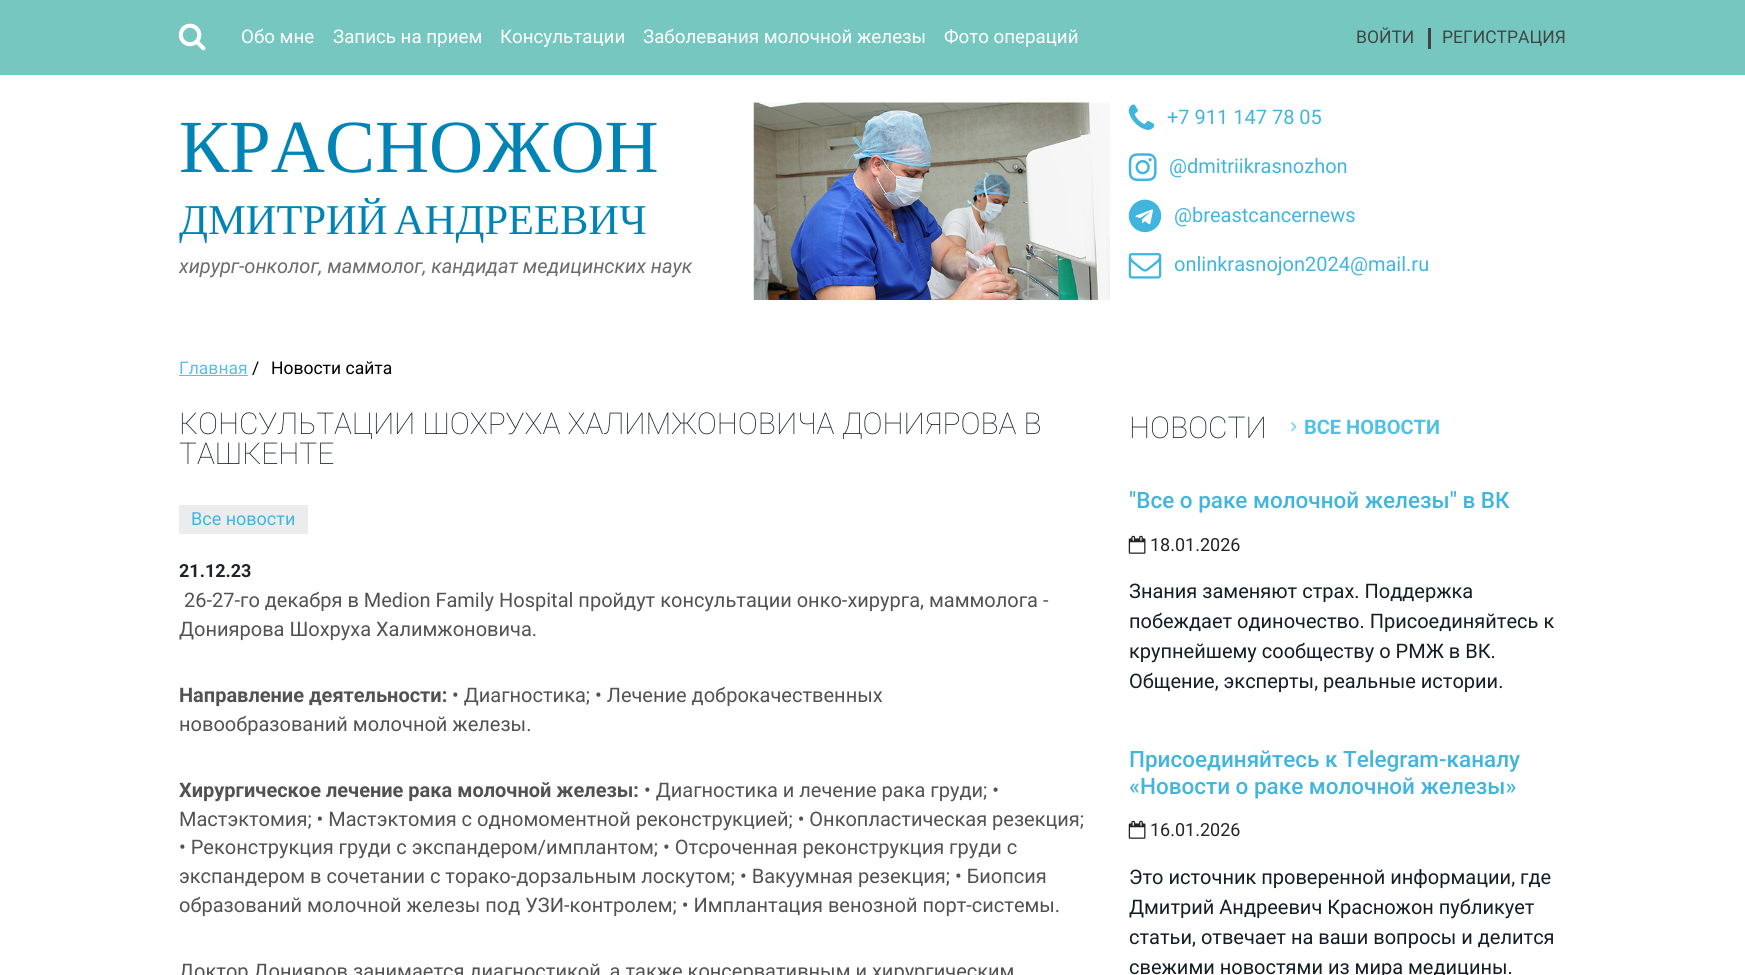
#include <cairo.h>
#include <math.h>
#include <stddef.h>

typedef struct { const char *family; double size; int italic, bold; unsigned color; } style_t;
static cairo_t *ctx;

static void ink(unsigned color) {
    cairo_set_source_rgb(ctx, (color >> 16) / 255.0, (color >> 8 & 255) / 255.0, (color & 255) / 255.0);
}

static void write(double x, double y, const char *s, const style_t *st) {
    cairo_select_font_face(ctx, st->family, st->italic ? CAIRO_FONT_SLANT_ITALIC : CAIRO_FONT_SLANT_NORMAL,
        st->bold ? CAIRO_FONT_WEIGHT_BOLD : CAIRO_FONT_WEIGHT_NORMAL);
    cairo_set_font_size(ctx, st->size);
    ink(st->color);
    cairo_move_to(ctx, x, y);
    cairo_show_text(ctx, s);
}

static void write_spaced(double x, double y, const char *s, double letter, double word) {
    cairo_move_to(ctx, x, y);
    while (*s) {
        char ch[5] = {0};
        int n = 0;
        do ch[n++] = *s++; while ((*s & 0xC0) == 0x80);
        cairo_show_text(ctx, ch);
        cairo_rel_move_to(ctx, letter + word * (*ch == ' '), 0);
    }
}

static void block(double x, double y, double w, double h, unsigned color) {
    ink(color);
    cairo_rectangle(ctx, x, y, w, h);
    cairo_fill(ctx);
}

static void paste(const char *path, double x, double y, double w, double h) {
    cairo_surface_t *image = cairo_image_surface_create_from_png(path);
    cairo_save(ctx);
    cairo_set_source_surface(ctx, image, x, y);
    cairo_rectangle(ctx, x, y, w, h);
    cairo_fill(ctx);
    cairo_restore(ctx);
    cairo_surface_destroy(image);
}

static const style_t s1 = {"Roboto", 18.75, 0, 0, 0xffffff};
static const style_t s2 = {"Roboto", 17.5, 0, 0, 0x3f4646};
static const style_t s3 = {"Liberation Serif", 75, 0, 0, 0x0084b5};
static const style_t s4 = {"Roboto", 20, 1, 0, 0x6c6c6c};
static const style_t s5 = {"Roboto", 20, 0, 0, 0x42b5df};
static const style_t s6 = {"Roboto", 17.5, 0, 0, 0x5bbfe3};
static const style_t s7 = {"Roboto", 17.5, 0, 0, 0x000000};
static const style_t s8 = {"Roboto ExtraLight", 30, 0, 0, 0x141d25};
static const style_t s9 = {"Roboto", 18, 0, 0, 0x42b5df};
static const style_t s10 = {"Roboto", 18, 0, 1, 0x212529};
static const style_t s11 = {"Roboto", 20, 0, 0, 0x525252};
static const style_t s12 = {"Roboto", 20, 0, 1, 0x525252};
static const style_t s13 = {"Roboto", 20, 0, 1, 0x4fc1e9};
static const style_t s14 = {"Roboto Medium", 22.5, 0, 0, 0x42b5df};
static const style_t s15 = {"Roboto", 18, 0, 0, 0x212529};
static const style_t s16 = {"Roboto", 20, 0, 0, 0x141d25};

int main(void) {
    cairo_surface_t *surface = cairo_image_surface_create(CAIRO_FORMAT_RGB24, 1745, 975);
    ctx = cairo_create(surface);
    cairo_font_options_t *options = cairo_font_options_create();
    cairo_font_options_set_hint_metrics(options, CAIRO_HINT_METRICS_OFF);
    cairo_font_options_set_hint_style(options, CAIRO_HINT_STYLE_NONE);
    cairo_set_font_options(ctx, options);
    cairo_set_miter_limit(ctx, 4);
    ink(0xffffff);
    cairo_paint(ctx);
    block(0, 0, 1745, 75, 0x76c7c0);
    paste("pic1.png", 178, 23, 28, 28);
    write(241, 43, "Обо мне", &s1);
    write(333, 43, "Запись на прием", &s1);
    write(500, 43, "Консультации", &s1);
    write(643, 43, "Заболевания молочной железы", &s1);
    write(944, 43, "Фото операций", &s1);
    write(1356, 43, "ВОЙТИ", &s2);
    block(1428, 28, 3, 21, 0x3f4646);
    write(1442, 43, "РЕГИСТРАЦИЯ", &s2);
    write(179, 172, "КРАСНОЖОН", &s3);
    cairo_set_font_size(ctx, 42.5);
    write_spaced(179, 234, "ДМИТРИЙ АНДРЕЕВИЧ", 0, -4);
    write(179, 273, "хирург-онколог, маммолог, кандидат медицинских наук", &s4);
    paste("pic2.png", 753, 102, 357, 198);
    paste("pic3.png", 1128, 104, 27, 26);
    write(1167, 124, "+7 911 147 78 05", &s5);
    paste("pic4.png", 1128, 153, 29, 29);
    write(1169, 173, "@dmitriikrasnozhon", &s5);
    paste("pic5.png", 1128, 199, 34, 34);
    write(1174, 222, "@breastcancernews", &s5);
    paste("pic6.png", 1128, 253, 34, 26);
    write(1174, 271, "onlinkrasnojon2024@mail.ru", &s5);
    write(179, 374, "Главная", &s6);
    block(179, 375, 69, 1, 0x5bbfe3);
    write(252, 374, "/", &s7);
    write(271, 374, "Новости сайта", &s7);
    write(179, 434, "КОНСУЛЬТАЦИИ ШОХРУХА ХАЛИМЖОНОВИЧА ДОНИЯРОВА В", &s8);
    write(179, 464, "ТАШКЕНТЕ", &s8);
    block(179, 505, 129, 29, 0xebecee);
    write(191, 525, "Все новости", &s9);
    write(179, 577, "21.12.23", &s10);
    write(184, 607, "26-27-го декабря в Medion Family Hospital пройдут консультации онко-хирурга, маммолога -", &s11);
    write(179, 636, "Дониярова Шохруха Халимжоновича.", &s11);
    write(179, 702, "Направление деятельности:", &s12);
    write(452, 702, "• Диагностика; • Лечение доброкачественных", &s11);
    write(179, 731, "новообразований молочной железы.", &s11);
    write(179, 797, "Хирургическое лечение рака молочной железы:", &s12);
    write(644, 797, "• Диагностика и лечение рака груди; •", &s11);
    write(179, 826, "Мастэктомия; • Мастэктомия с одномоментной реконструкцией; • Онкопластическая резекция;", &s11);
    write(179, 854, "• Реконструкция груди с экспандером/имплантом; • Отсроченная реконструкция груди с", &s11);
    write(179, 883, "экспандером в сочетании с торако-дорзальным лоскутом; • Вакуумная резекция; • Биопсия", &s11);
    write(179, 912, "образований молочной железы под УЗИ-контролем; • Имплантация венозной порт-системы.", &s11);
    write(179, 978, "Доктор Донияров занимается диагностикой, а также консервативным и хирургическим", &s11);
    write(1129, 438, "НОВОСТИ", &s8);
    paste("pic7.png", 1291, 421, 6, 11);
    write(1304, 434, "ВСЕ НОВОСТИ", &s13);
    write(1129, 508, "\"Все о раке молочной железы\" в ВК", &s14);
    paste("pic8.png", 1128, 535, 18, 19);
    write(1150, 551, "18.01.2026", &s15);
    write(1129, 598, "Знания заменяют страх. Поддержка", &s16);
    write(1129, 628, "побеждает одиночество. Присоединяйтесь к", &s16);
    write(1129, 658, "крупнейшему сообществу о РМЖ в ВК.", &s16);
    write(1129, 688, "Общение, эксперты, реальные истории.", &s16);
    write(1129, 767, "Присоединяйтесь к Telegram-каналу", &s14);
    write(1129, 794, "«Новости о раке молочной железы»", &s14);
    paste("pic8.png", 1128, 820, 18, 19);
    write(1150, 836, "16.01.2026", &s15);
    write(1129, 884, "Это источник проверенной информации, где", &s16);
    write(1129, 914, "Дмитрий Андреевич Красножон публикует", &s16);
    write(1129, 944, "статьи, отвечает на ваши вопросы и делится", &s16);
    write(1129, 974, "свежими новостями из мира медицины.", &s16);
    cairo_surface_write_to_png(surface, "screenshot.png");
    cairo_font_options_destroy(options);
    cairo_destroy(ctx);
    cairo_surface_destroy(surface);
    return 0;
}
